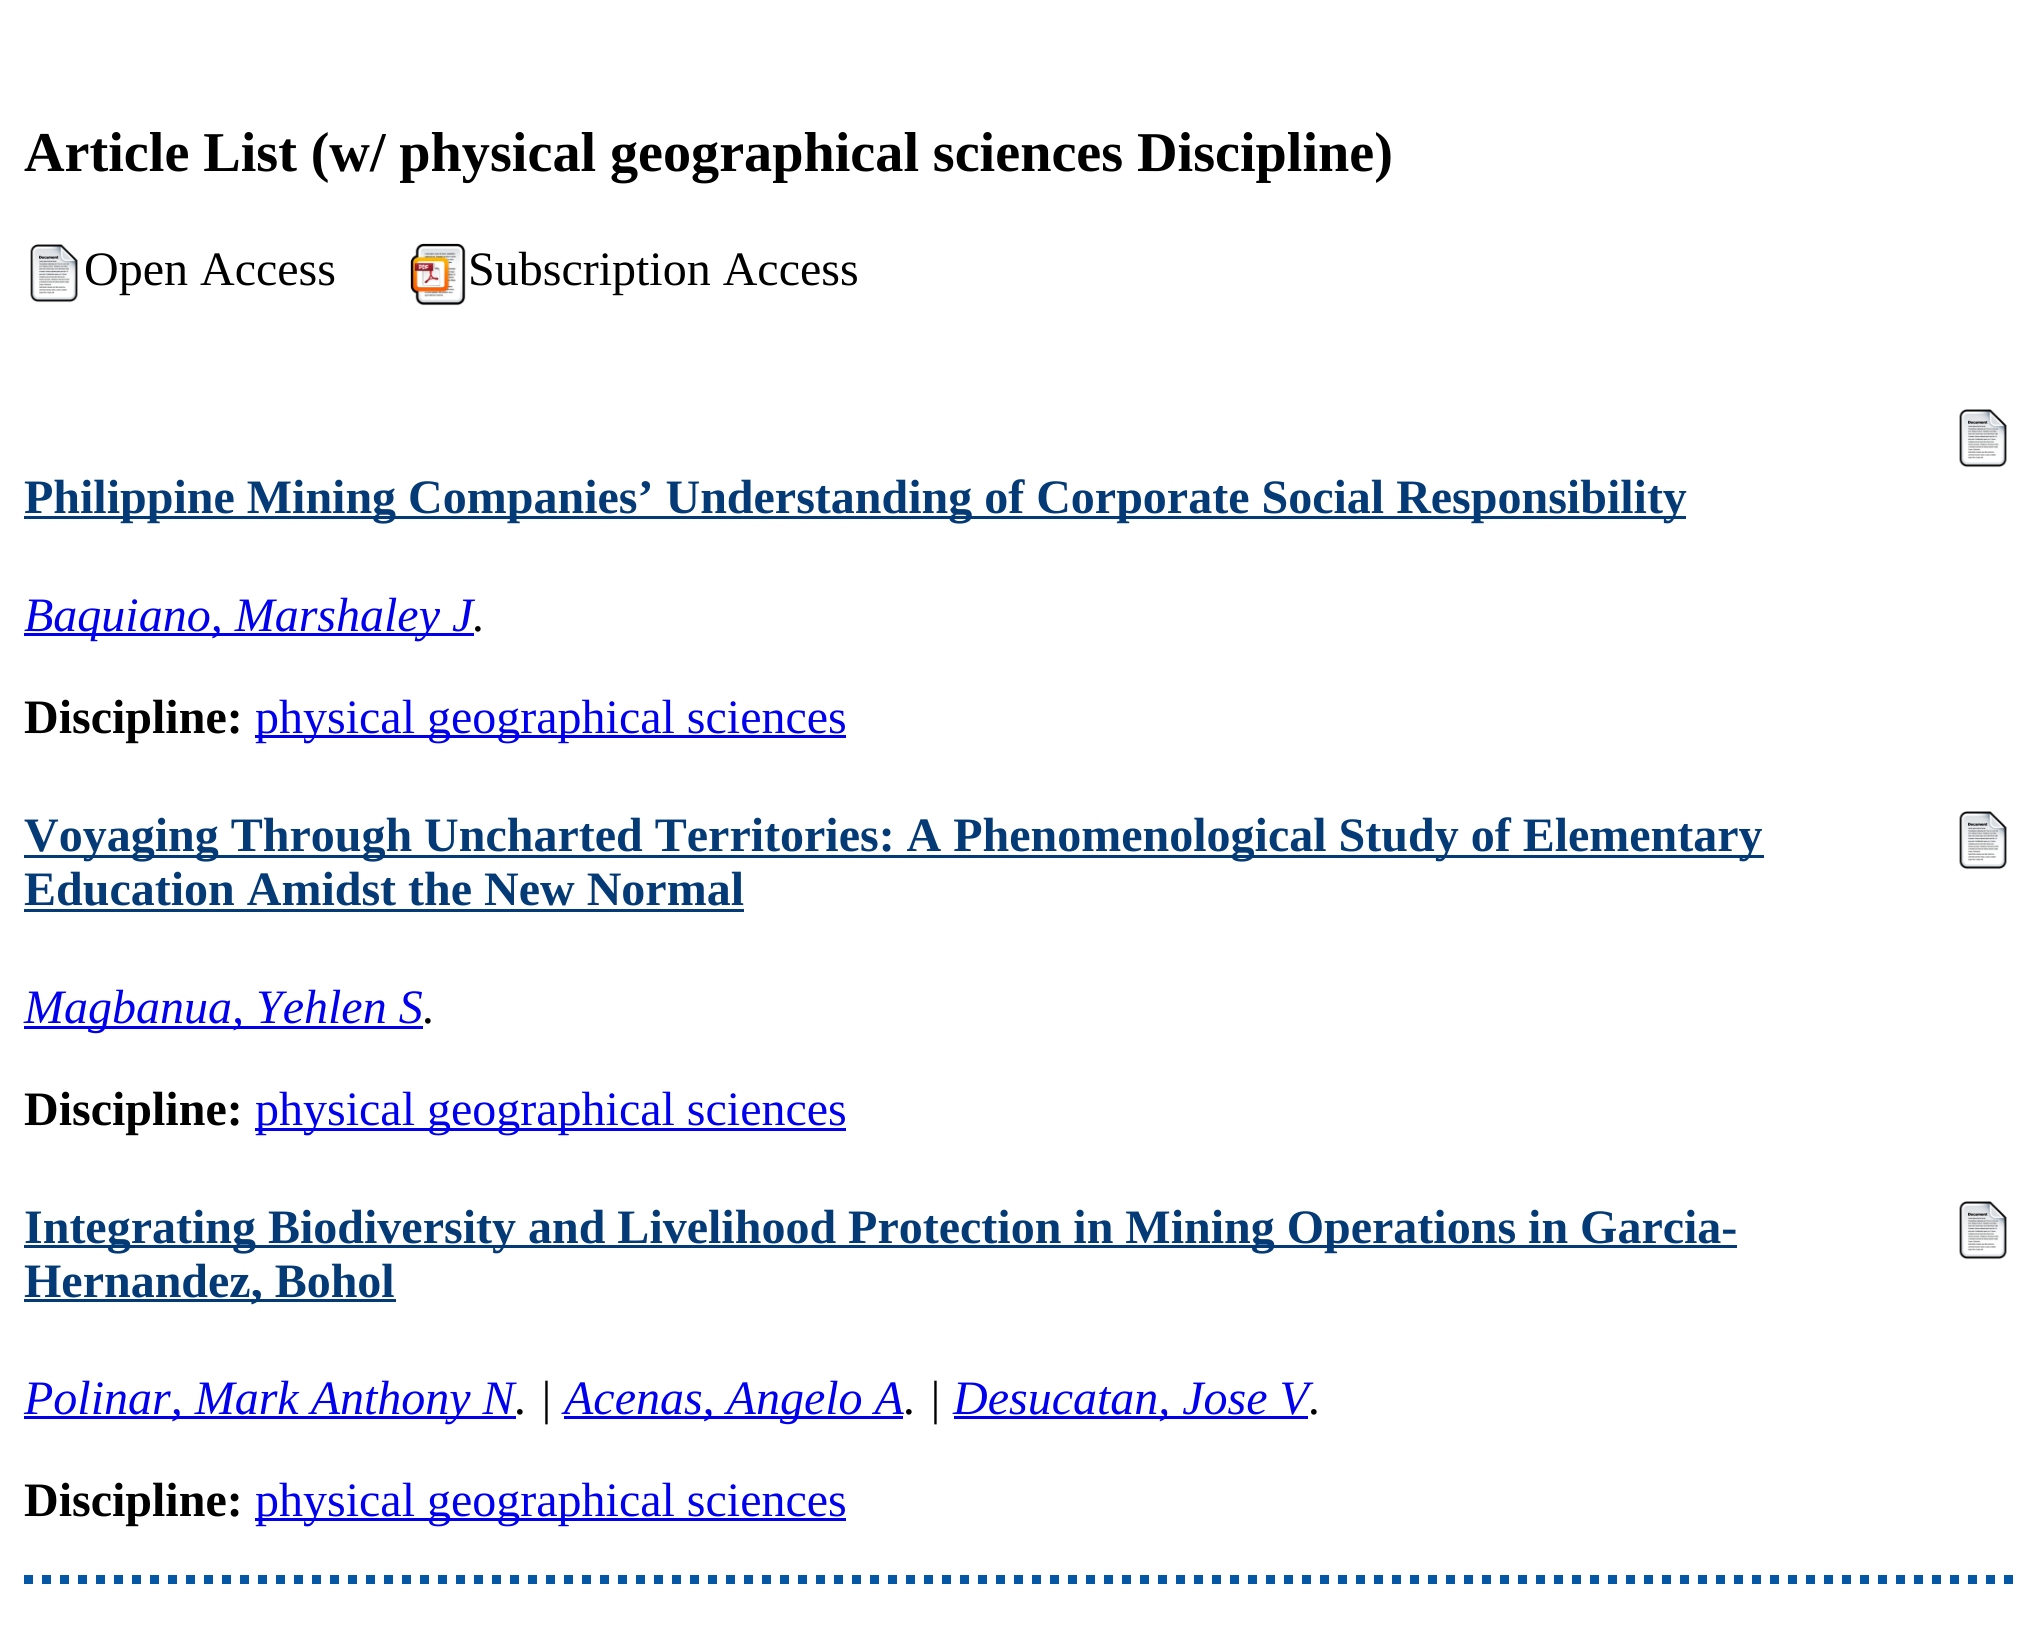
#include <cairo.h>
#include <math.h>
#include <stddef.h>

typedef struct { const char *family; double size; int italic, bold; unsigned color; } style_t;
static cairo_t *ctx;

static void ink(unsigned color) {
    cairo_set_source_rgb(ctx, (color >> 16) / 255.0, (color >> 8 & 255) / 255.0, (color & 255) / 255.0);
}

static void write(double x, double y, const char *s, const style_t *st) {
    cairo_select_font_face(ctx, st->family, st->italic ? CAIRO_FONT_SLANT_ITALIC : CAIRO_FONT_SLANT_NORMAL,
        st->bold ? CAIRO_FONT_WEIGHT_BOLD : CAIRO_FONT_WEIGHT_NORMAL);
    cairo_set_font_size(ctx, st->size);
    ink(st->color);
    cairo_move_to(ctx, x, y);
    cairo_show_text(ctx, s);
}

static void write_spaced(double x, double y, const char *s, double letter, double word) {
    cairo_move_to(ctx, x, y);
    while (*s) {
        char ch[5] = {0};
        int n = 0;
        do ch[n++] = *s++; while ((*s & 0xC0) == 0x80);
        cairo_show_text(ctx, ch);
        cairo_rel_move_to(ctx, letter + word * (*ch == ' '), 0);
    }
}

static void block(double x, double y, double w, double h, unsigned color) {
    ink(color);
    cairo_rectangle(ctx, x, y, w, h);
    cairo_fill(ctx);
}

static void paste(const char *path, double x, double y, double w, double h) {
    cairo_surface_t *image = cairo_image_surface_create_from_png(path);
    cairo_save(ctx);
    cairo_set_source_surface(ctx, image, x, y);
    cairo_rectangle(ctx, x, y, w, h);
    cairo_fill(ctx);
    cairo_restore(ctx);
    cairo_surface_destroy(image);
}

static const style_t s1 = {"Liberation Serif", 48, 0, 0, 0x000000};
static const style_t s2 = {"Liberation Serif", 48, 0, 1, 0x043a76};
static const style_t s3 = {"Liberation Serif", 48, 1, 0, 0x0000ee};
static const style_t s4 = {"Liberation Serif", 48, 1, 0, 0x000000};
static const style_t s5 = {"Liberation Serif", 48, 0, 1, 0x000000};
static const style_t s6 = {"Liberation Serif", 48, 0, 0, 0x0000ee};

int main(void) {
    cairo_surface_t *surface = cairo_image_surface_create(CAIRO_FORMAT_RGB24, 2036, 1636);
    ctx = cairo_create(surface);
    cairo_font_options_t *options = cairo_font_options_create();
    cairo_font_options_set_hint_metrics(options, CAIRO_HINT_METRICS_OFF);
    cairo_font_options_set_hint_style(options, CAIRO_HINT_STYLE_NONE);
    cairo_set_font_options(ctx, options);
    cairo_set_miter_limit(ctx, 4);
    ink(0xffffff);
    cairo_paint(ctx);
    cairo_new_path(ctx);
    cairo_move_to(ctx, 24, 1579.5);
    cairo_line_to(ctx, 2013, 1579.5);
    ink(0x0357a4);
    cairo_set_line_width(ctx, 9);
    cairo_set_dash(ctx, (double[]){9, 9}, 2, 0);
    cairo_stroke(ctx);
    cairo_select_font_face(ctx, "Liberation Serif", CAIRO_FONT_SLANT_NORMAL, CAIRO_FONT_WEIGHT_BOLD);
    cairo_set_font_size(ctx, 56.2);
    ink(0x000000);
    write_spaced(24, 171, "Article List (w/ physical geographical sciences Discipline)", 0, -0.25);
    paste("pic1.png", 30, 244, 48, 59);
    write(84, 285, "Open Access", &s1);
    paste("pic2.png", 410, 243, 56, 63);
    write(468, 285, "Subscription Access", &s1);
    paste("pic3.png", 1959, 409, 48, 59);
    block(24, 516, 1662, 3, 0x043a76);
    write(24, 513, "Philippine Mining Companies’ Understanding of Corporate Social Responsibility", &s2);
    block(24, 633, 450, 3, 0x0000ee);
    write(24, 631, "Baquiano, Marshaley J", &s3);
    write(473, 631, ".", &s4);
    write(24, 733, "Discipline:", &s5);
    block(255, 735, 591, 3, 0x0000ee);
    write(255, 733, "physical geographical sciences", &s6);
    block(24, 855, 1740, 3, 0x043a76);
    write(24, 851, "Voyaging Through Uncharted Territories: A Phenomenological Study of Elementary", &s2);
    write(24, 905, "Education Amidst the New Normal", &s2);
    block(24, 909, 720, 3, 0x043a76);
    paste("pic3.png", 1959, 811, 48, 59);
    block(24, 1026, 399, 3, 0x0000ee);
    write(24, 1023, "Magbanua, Yehlen S", &s3);
    write(423, 1023, ".", &s4);
    write(24, 1125, "Discipline:", &s5);
    block(255, 1128, 591, 3, 0x0000ee);
    write(255, 1125, "physical geographical sciences", &s6);
    block(24, 1245, 1713, 3, 0x043a76);
    write(24, 1243, "Integrating Biodiversity and Livelihood Protection in Mining Operations in Garcia-", &s2);
    block(24, 1299, 372, 3, 0x043a76);
    write(24, 1297, "Hernandez, Bohol", &s2);
    paste("pic3.png", 1959, 1201, 48, 59);
    block(24, 1416, 492, 3, 0x0000ee);
    write(24, 1414, "Polinar, Mark Anthony N", &s3);
    write(515, 1414, ". |", &s4);
    block(564, 1416, 339, 3, 0x0000ee);
    write(564, 1414, "Acenas, Angelo A", &s3);
    write(904, 1414, ". |", &s4);
    block(954, 1416, 354, 3, 0x0000ee);
    write(953, 1414, "Desucatan, Jose V", &s3);
    write(1309, 1414, ".", &s4);
    write(24, 1516, "Discipline:", &s5);
    block(255, 1518, 591, 3, 0x0000ee);
    write(255, 1516, "physical geographical sciences", &s6);
    cairo_surface_write_to_png(surface, "screenshot.png");
    cairo_font_options_destroy(options);
    cairo_destroy(ctx);
    cairo_surface_destroy(surface);
    return 0;
}
